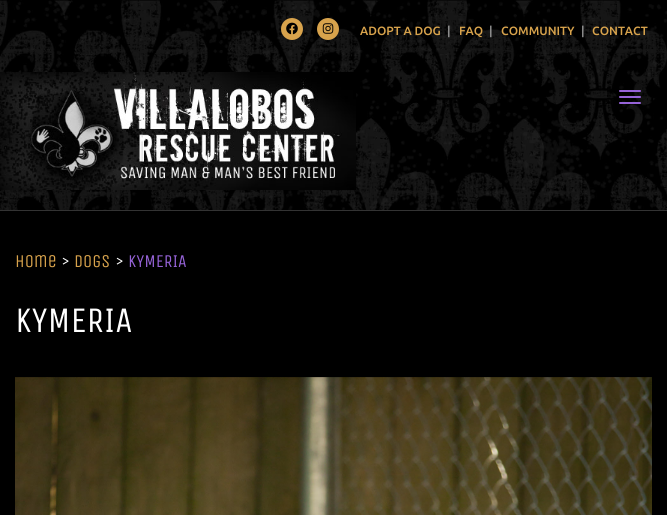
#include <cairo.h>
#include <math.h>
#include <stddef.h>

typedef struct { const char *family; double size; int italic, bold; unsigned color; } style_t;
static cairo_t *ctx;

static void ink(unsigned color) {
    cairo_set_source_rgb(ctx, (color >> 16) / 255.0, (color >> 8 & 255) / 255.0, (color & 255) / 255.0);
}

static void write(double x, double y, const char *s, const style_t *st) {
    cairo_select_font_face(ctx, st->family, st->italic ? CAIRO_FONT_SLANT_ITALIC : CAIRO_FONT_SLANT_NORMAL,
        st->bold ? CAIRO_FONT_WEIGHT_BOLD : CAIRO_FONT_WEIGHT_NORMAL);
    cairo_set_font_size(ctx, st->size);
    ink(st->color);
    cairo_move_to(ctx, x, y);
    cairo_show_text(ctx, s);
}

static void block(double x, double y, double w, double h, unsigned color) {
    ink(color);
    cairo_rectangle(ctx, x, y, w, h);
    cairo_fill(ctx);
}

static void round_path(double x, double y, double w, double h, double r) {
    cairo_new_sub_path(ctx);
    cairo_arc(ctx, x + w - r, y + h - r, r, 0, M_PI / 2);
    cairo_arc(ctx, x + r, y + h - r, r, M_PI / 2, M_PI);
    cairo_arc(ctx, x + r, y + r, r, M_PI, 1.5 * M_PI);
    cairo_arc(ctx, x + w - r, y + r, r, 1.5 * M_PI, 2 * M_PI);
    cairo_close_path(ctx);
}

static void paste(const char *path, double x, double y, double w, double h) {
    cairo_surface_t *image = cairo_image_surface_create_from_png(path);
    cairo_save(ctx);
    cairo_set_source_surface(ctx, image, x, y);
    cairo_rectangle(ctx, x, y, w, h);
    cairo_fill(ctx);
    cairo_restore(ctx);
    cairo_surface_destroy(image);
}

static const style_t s1 = {"Ubuntu Medium", 12, 0, 0, 0xd8a34c};
static const style_t s2 = {"Ubuntu Medium", 12, 0, 0, 0x999999};
static const style_t s3 = {"Unica One", 18, 0, 0, 0xd8a34c};
static const style_t s4 = {"Unica One", 18, 0, 0, 0xffffff};
static const style_t s5 = {"Unica One", 18, 0, 0, 0x9663d8};
static const style_t s6 = {"Unica One", 36, 0, 0, 0xffffff};

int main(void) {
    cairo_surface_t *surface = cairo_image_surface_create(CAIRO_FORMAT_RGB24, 667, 515);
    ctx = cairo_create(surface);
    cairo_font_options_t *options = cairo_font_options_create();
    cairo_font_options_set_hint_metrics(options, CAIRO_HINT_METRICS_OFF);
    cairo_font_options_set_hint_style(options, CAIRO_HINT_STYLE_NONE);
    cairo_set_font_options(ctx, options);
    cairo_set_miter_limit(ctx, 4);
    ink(0x000000);
    cairo_paint(ctx);
    paste("pic1.png", 0, 0, 667, 210);
    block(0, 210, 667, 1, 0x333333);
    ink(0xd8a34c);
    cairo_arc(ctx, 292, 29, 11, 0, 2 * M_PI);
    cairo_fill(ctx);
    paste("pic2.png", 286, 22, 12, 13);
    cairo_arc(ctx, 328, 29, 11, 0, 2 * M_PI);
    cairo_fill(ctx);
    paste("pic3.png", 322, 23, 12, 11);
    write(360, 35, "ADOPT A DOG", &s1);
    write(447, 35, "|", &s2);
    write(459, 35, "FAQ", &s1);
    write(489, 35, "|", &s2);
    write(501, 35, "COMMUNITY", &s1);
    write(581, 35, "|", &s2);
    write(592, 35, "CONTACT", &s1);
    paste("pic4.png", 0, 72, 356, 118);
    cairo_set_source_rgba(ctx, 0, 0, 0, 0.15);
    cairo_rectangle(ctx, 608, 80, 43, 34);
    cairo_fill(ctx);
    ink(0x9663d8);
    round_path(619, 90, 22, 2, 1);
    cairo_fill(ctx);
    round_path(619, 96, 22, 2, 1);
    cairo_fill(ctx);
    round_path(619, 102, 22, 2, 1);
    cairo_fill(ctx);
    write(15, 267, "Home", &s3);
    write(61, 267, ">", &s4);
    write(74, 267, "Dogs", &s3);
    write(115, 267, ">", &s4);
    write(128, 267, "KYMERIA", &s5);
    write(15, 332, "KYMERIA", &s6);
    paste("pic5.png", 15, 377, 637, 138);
    cairo_surface_write_to_png(surface, "screenshot.png");
    cairo_font_options_destroy(options);
    cairo_destroy(ctx);
    cairo_surface_destroy(surface);
    return 0;
}
